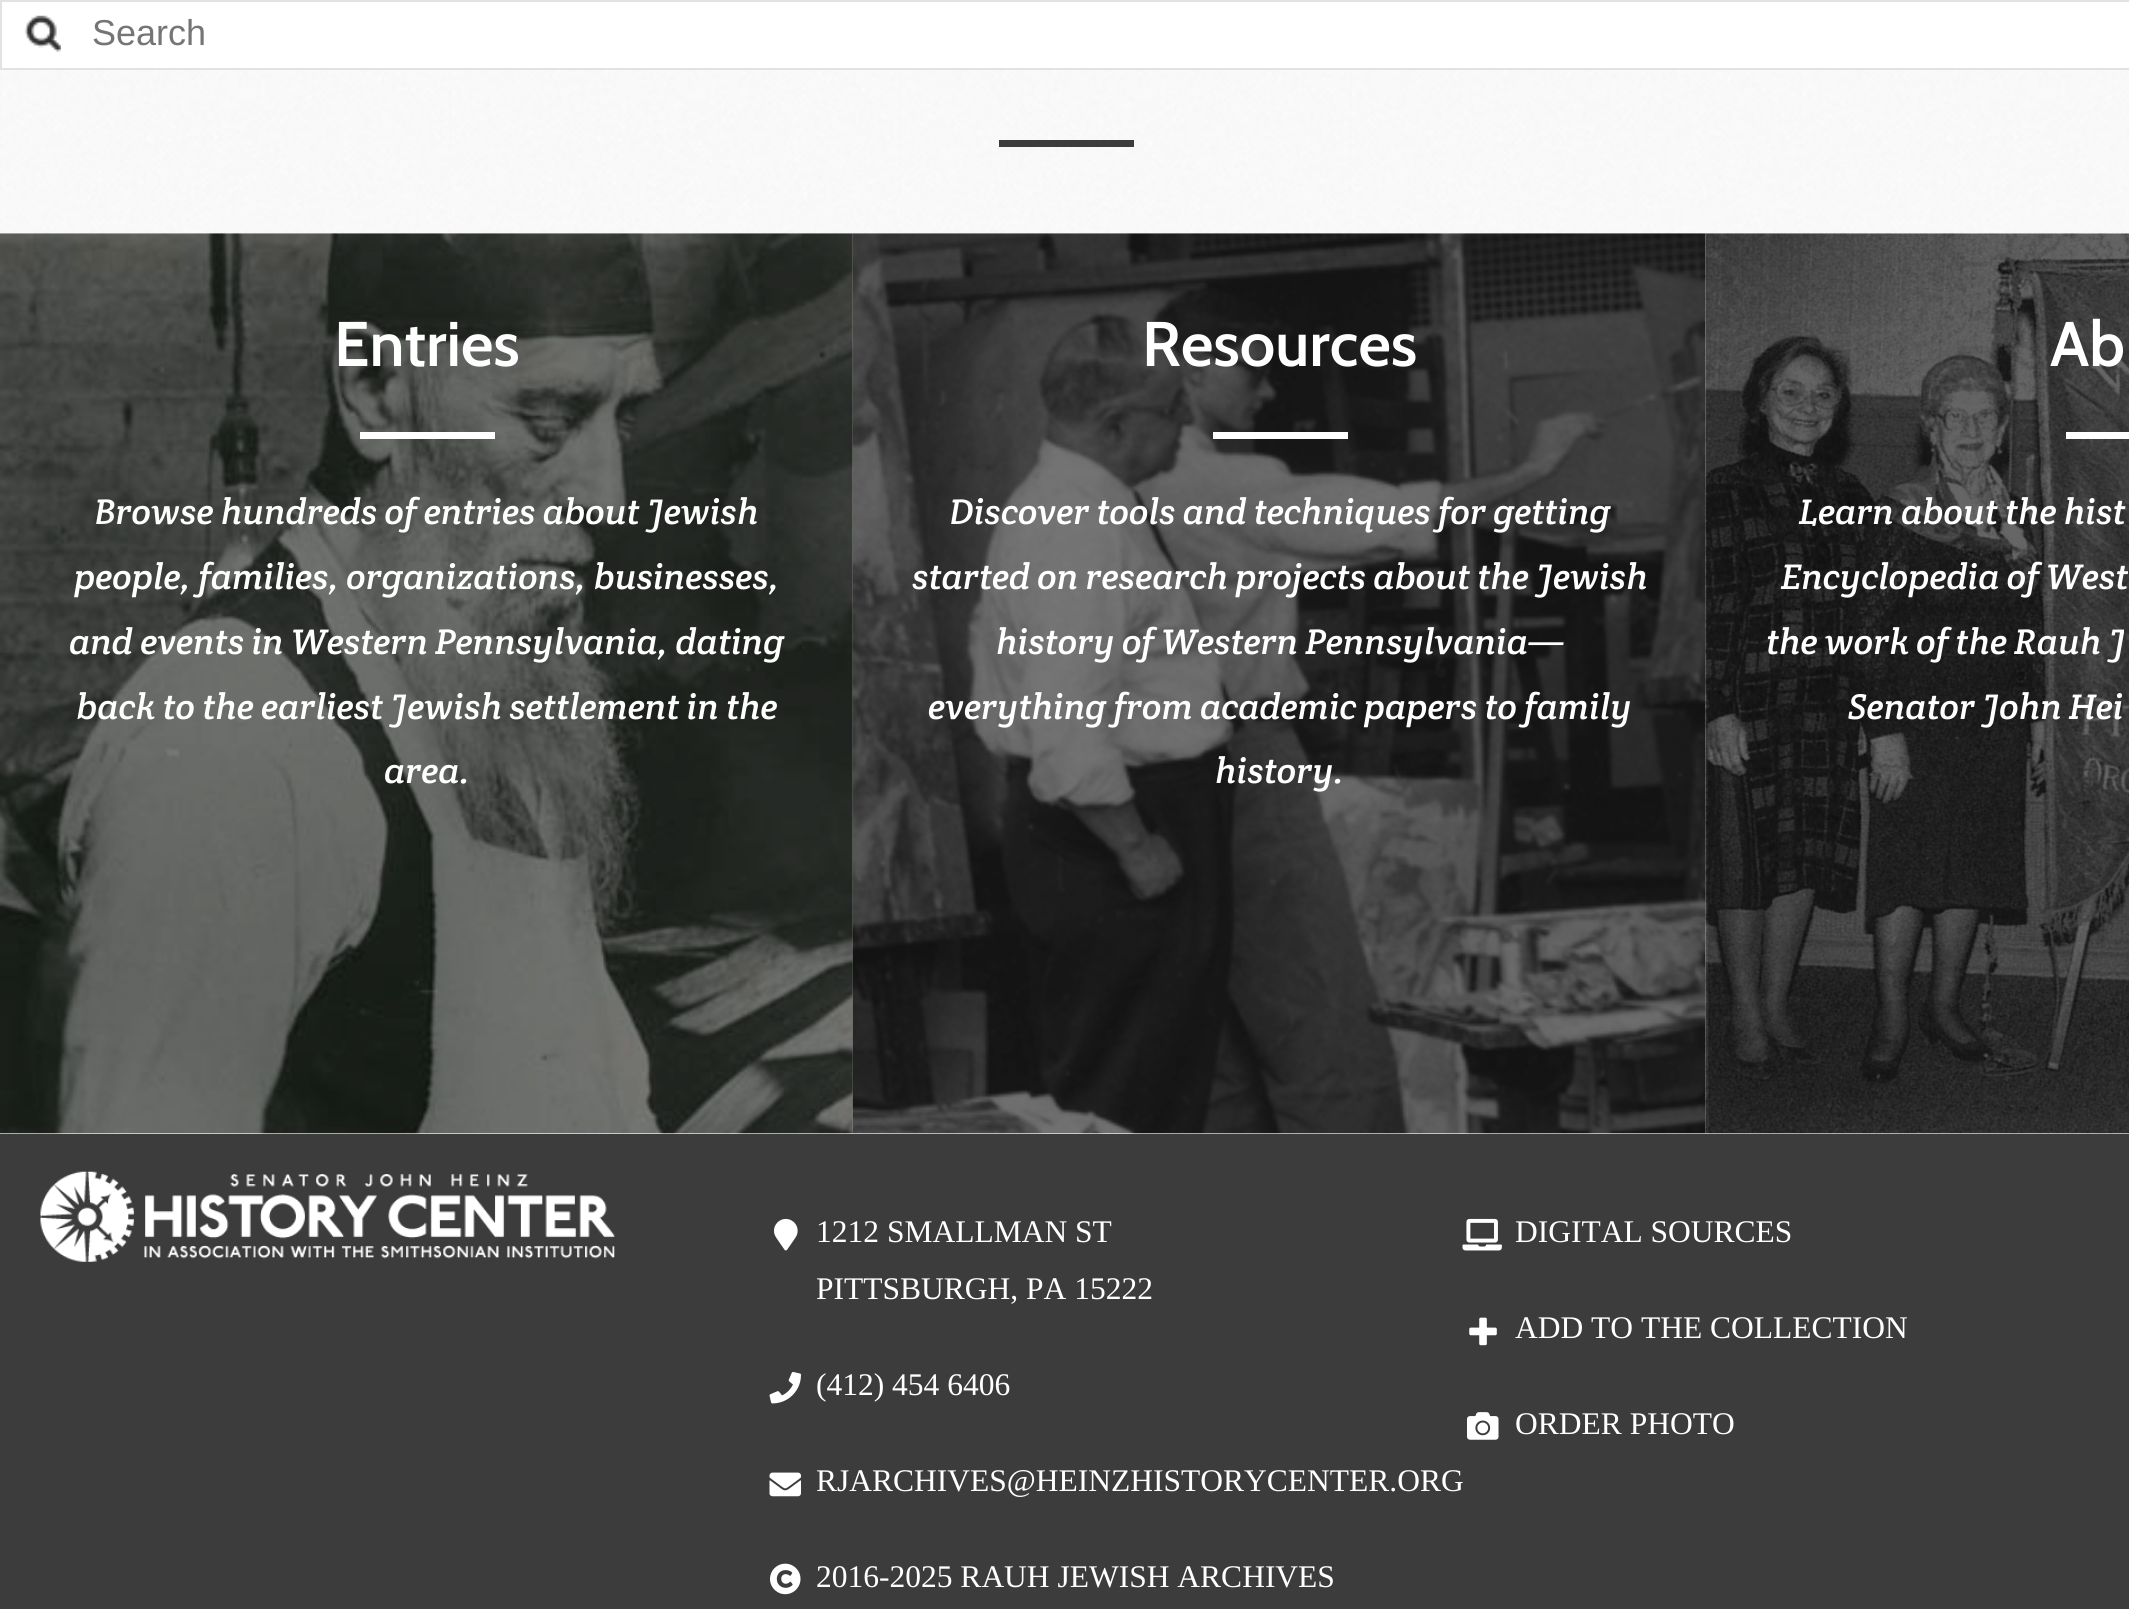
#include <cairo.h>
#include <math.h>
#include <stddef.h>

typedef struct { const char *family; double size; int italic, bold; unsigned color; } style_t;
static cairo_t *ctx;

static void ink(unsigned color) {
    cairo_set_source_rgb(ctx, (color >> 16) / 255.0, (color >> 8 & 255) / 255.0, (color & 255) / 255.0);
}

static void write(double x, double y, const char *s, const style_t *st) {
    cairo_select_font_face(ctx, st->family, st->italic ? CAIRO_FONT_SLANT_ITALIC : CAIRO_FONT_SLANT_NORMAL,
        st->bold ? CAIRO_FONT_WEIGHT_BOLD : CAIRO_FONT_WEIGHT_NORMAL);
    cairo_set_font_size(ctx, st->size);
    ink(st->color);
    cairo_move_to(ctx, x, y);
    cairo_show_text(ctx, s);
}

static void block(double x, double y, double w, double h, unsigned color) {
    ink(color);
    cairo_rectangle(ctx, x, y, w, h);
    cairo_fill(ctx);
}

static void paste(const char *path, double x, double y, double w, double h) {
    cairo_surface_t *image = cairo_image_surface_create_from_png(path);
    cairo_save(ctx);
    cairo_set_source_surface(ctx, image, x, y);
    cairo_rectangle(ctx, x, y, w, h);
    cairo_fill(ctx);
    cairo_restore(ctx);
    cairo_surface_destroy(image);
}

static const style_t s1 = {"Liberation Sans", 36, 0, 0, 0x757575};
static const style_t s2 = {"Cabin SemiBold", 63, 0, 0, 0xffffff};
static const style_t s3 = {"Crete Round", 36, 1, 0, 0xffffff};
static const style_t s4 = {"Liberation Serif", 31.5, 0, 0, 0xffffff};

int main(void) {
    cairo_surface_t *surface = cairo_image_surface_create(CAIRO_FORMAT_RGB24, 2129, 1609);
    ctx = cairo_create(surface);
    cairo_font_options_t *options = cairo_font_options_create();
    cairo_font_options_set_hint_metrics(options, CAIRO_HINT_METRICS_OFF);
    cairo_font_options_set_hint_style(options, CAIRO_HINT_STYLE_NONE);
    cairo_set_font_options(ctx, options);
    cairo_set_miter_limit(ctx, 4);
    ink(0xe2e2e2);
    cairo_paint(ctx);
    block(2, 2, 2127, 66, 0xffffff);
    paste("pic1.png", 24, 15, 37, 37);
    write(92, 45, "Search", &s1);
    paste("pic2.png", 0, 70, 2129, 1064);
    block(999, 140, 135, 7, 0x3c3c3c);
    paste("pic3.png", 0, 233, 853, 901);
    write(334, 366, "Entries", &s2);
    block(360, 432, 135, 7, 0xffffff);
    write(94, 524, "Browse hundreds of entries about Jewish", &s3);
    write(74, 589, "people, families, organizations, businesses,", &s3);
    write(69, 654, "and events in Western Pennsylvania, dating", &s3);
    write(76, 719, "back to the earliest Jewish settlement in the", &s3);
    write(384, 783, "area.", &s3);
    paste("pic4.png", 852, 233, 854, 901);
    write(1142, 366, "Resources", &s2);
    block(1213, 432, 135, 7, 0xffffff);
    write(949, 524, "Discover tools and techniques for getting", &s3);
    write(912, 589, "started on research projects about the Jewish", &s3);
    write(996, 654, "history of Western Pennsylvania—", &s3);
    write(928, 719, "everything from academic papers to family", &s3);
    write(1215, 783, "history.", &s3);
    paste("pic5.png", 1705, 233, 424, 901);
    write(2050, 366, "Ab", &s2);
    block(2066, 432, 63, 7, 0xffffff);
    write(1799, 524, "Learn about the hist", &s3);
    write(1781, 589, "Encyclopedia of West", &s3);
    write(1766, 654, "the work of the Rauh J", &s3);
    write(1848, 719, "Senator John Hei", &s3);
    block(0, 1134, 2129, 475, 0x3c3c3c);
    paste("pic6.png", 40, 1171, 575, 91);
    paste("pic7.png", 774, 1218, 24, 33);
    write(816, 1242, "1212 SMALLMAN ST", &s4);
    write(816, 1299, "PITTSBURGH, PA 15222", &s4);
    paste("pic8.png", 769, 1372, 32, 32);
    write(816, 1395, "(412) 454 6406", &s4);
    paste("pic9.png", 769, 1472, 32, 25);
    write(816, 1491, "RJARCHIVES@HEINZHISTORYCENTER.ORG", &s4);
    paste("pic10.png", 770, 1563, 31, 32);
    write(816, 1587, "2016-2025 RAUH JEWISH ARCHIVES", &s4);
    paste("pic11.png", 1462, 1218, 40, 33);
    write(1515, 1242, "DIGITAL SOURCES", &s4);
    paste("pic12.png", 1469, 1317, 28, 29);
    write(1515, 1338, "ADD TO THE COLLECTION", &s4);
    paste("pic13.png", 1467, 1412, 32, 28);
    write(1515, 1434, "ORDER PHOTO", &s4);
    cairo_surface_write_to_png(surface, "screenshot.png");
    cairo_font_options_destroy(options);
    cairo_destroy(ctx);
    cairo_surface_destroy(surface);
    return 0;
}
